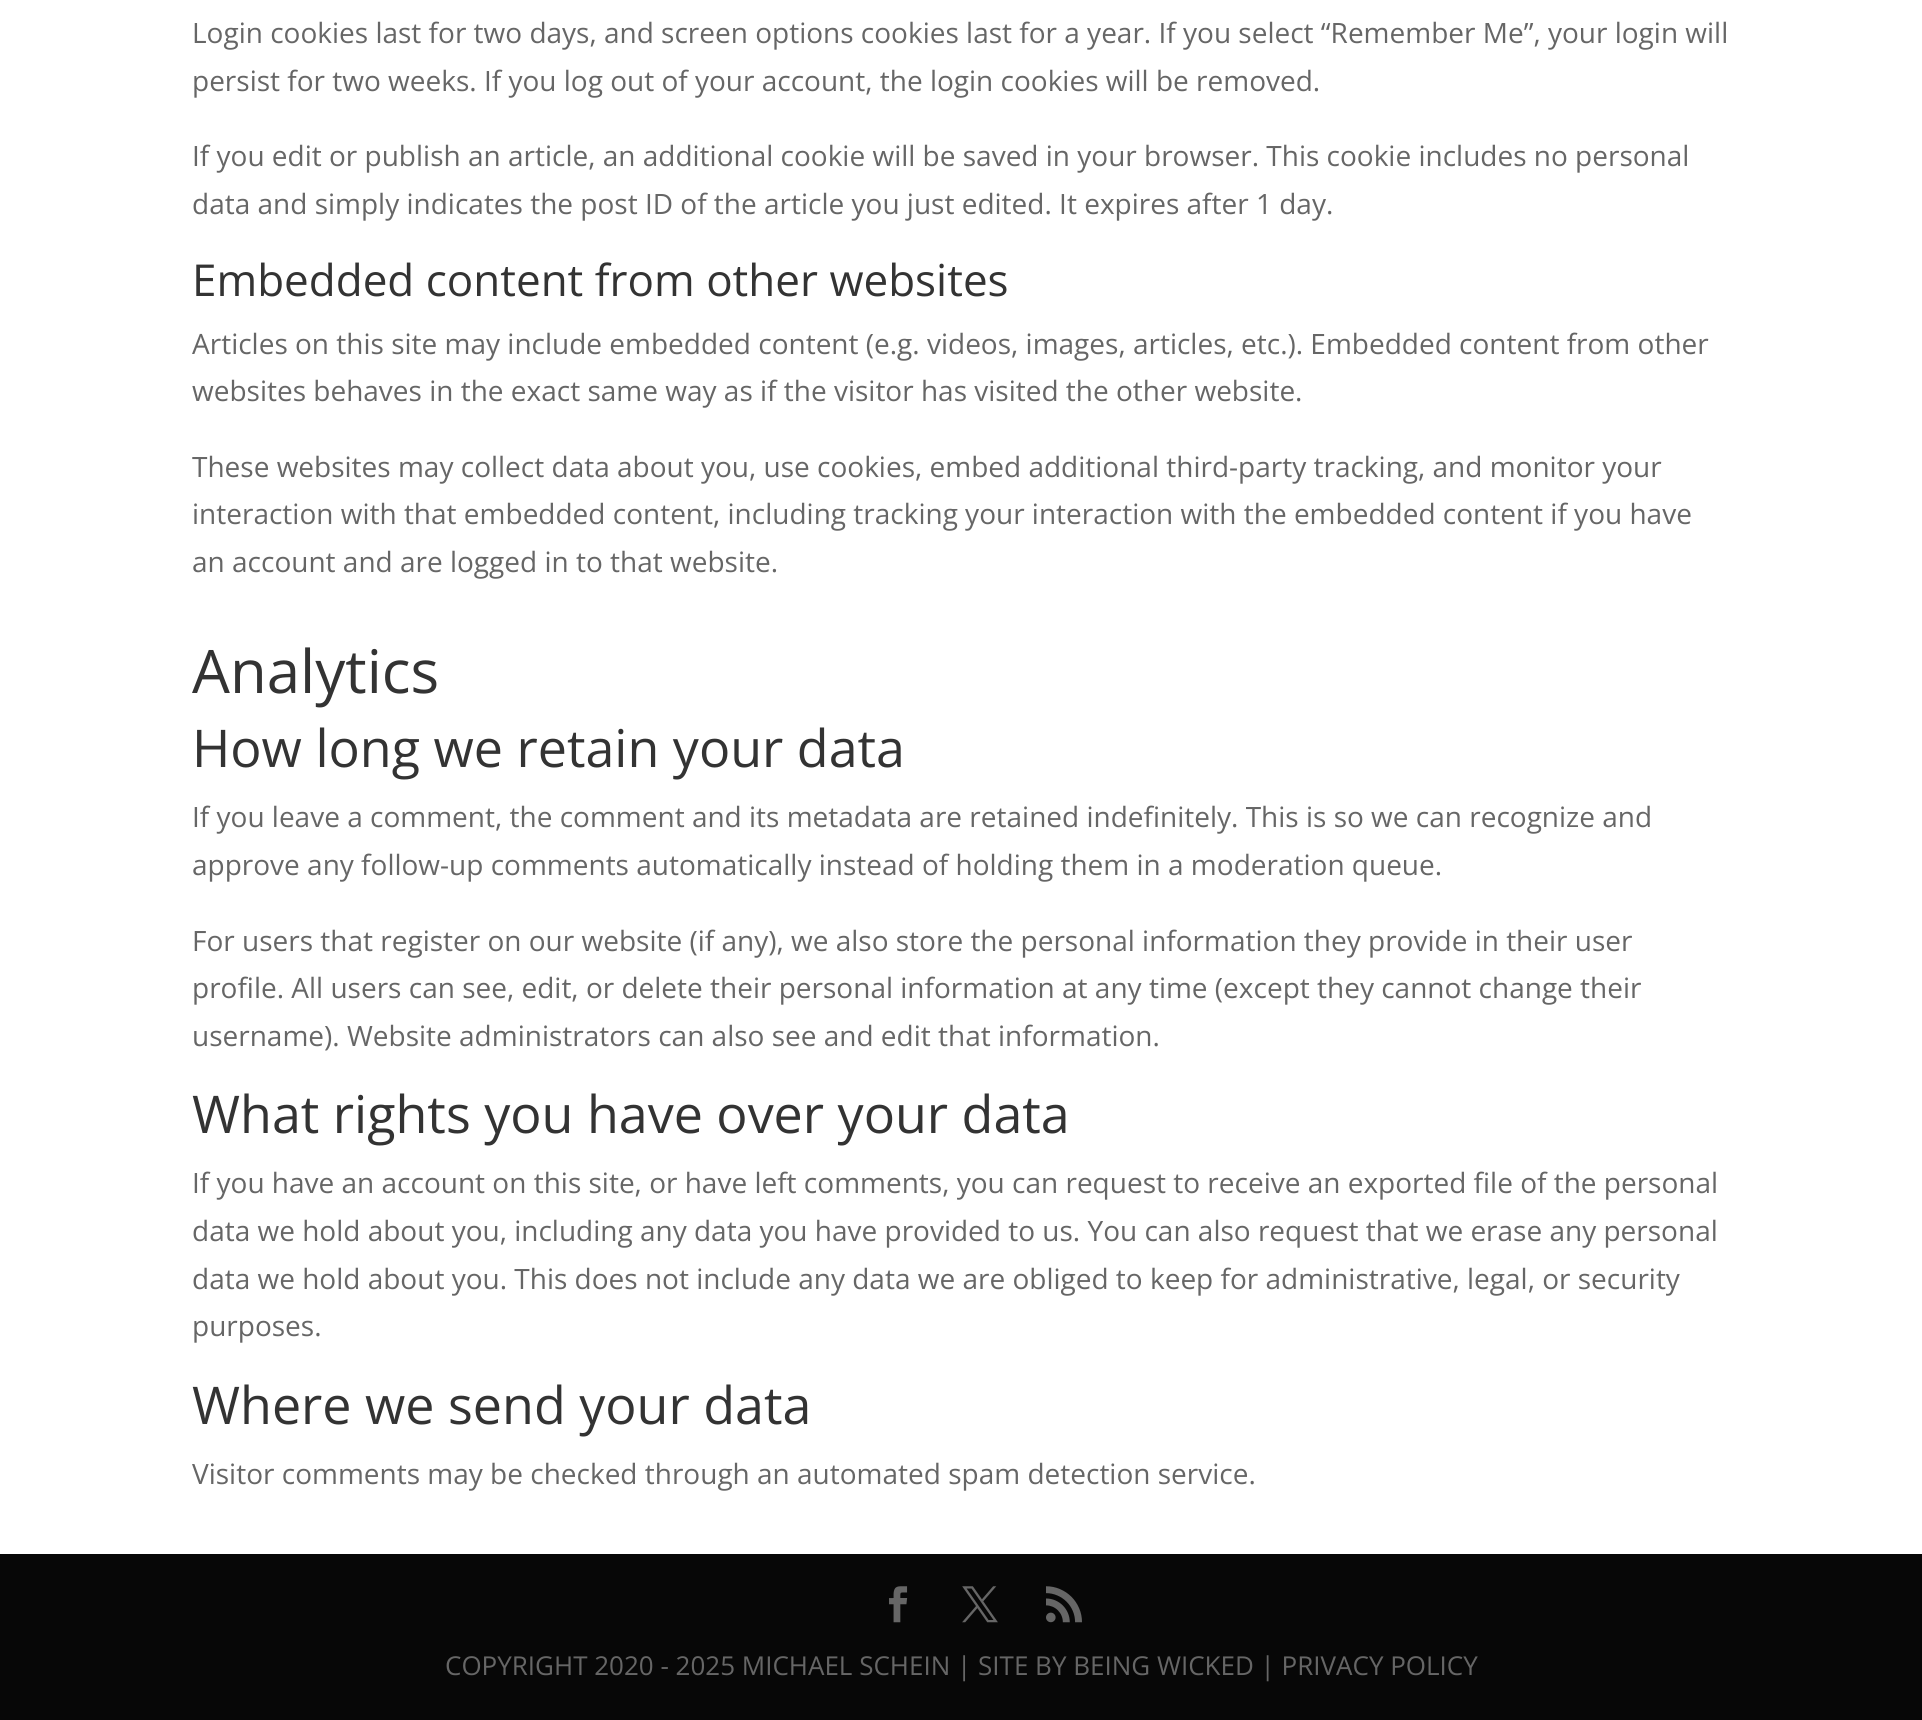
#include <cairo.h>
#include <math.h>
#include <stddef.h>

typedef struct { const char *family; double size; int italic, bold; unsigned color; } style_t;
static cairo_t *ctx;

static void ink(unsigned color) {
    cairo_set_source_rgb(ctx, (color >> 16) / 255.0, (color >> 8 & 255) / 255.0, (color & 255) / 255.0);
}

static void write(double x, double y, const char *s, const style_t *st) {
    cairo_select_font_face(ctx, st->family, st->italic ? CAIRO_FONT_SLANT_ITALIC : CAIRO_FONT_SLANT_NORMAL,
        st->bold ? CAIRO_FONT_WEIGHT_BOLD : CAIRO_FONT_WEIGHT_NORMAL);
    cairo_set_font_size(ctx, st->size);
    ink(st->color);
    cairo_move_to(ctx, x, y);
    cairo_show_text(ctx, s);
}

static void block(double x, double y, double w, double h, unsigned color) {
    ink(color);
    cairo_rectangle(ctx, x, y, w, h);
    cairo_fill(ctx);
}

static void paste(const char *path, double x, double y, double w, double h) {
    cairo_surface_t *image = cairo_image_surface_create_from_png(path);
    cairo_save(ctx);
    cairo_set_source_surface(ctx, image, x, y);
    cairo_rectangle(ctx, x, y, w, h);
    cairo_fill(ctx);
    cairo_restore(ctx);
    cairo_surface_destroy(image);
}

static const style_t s1 = {"Open Sans", 28, 0, 0, 0x666666};
static const style_t s2 = {"Open Sans", 44, 0, 0, 0x333333};
static const style_t s3 = {"Open Sans", 60, 0, 0, 0x333333};
static const style_t s4 = {"Open Sans", 52, 0, 0, 0x333333};
static const style_t s5 = {"Open Sans", 26, 0, 0, 0x666666};

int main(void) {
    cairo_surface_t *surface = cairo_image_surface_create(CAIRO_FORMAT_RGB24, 1922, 1720);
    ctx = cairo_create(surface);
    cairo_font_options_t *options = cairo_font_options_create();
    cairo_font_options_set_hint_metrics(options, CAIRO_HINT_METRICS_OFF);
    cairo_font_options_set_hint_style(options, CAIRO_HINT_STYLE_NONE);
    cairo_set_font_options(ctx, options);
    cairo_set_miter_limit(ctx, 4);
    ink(0xffffff);
    cairo_paint(ctx);
    write(192, 43, "Login cookies last for two days, and screen options cookies last for a year. If you select “Remember Me”, your login will", &s1);
    write(192, 91, "persist for two weeks. If you log out of your account, the login cookies will be removed.", &s1);
    write(192, 166, "If you edit or publish an article, an additional cookie will be saved in your browser. This cookie includes no personal", &s1);
    write(192, 214, "data and simply indicates the post ID of the article you just edited. It expires after 1 day.", &s1);
    write(192, 296, "Embedded content from other websites", &s2);
    write(192, 354, "Articles on this site may include embedded content (e.g. videos, images, articles, etc.). Embedded content from other", &s1);
    write(192, 401, "websites behaves in the exact same way as if the visitor has visited the other website.", &s1);
    write(192, 477, "These websites may collect data about you, use cookies, embed additional third-party tracking, and monitor your", &s1);
    write(192, 524, "interaction with that embedded content, including tracking your interaction with the embedded content if you have", &s1);
    write(192, 572, "an account and are logged in to that website.", &s1);
    write(192, 693, "Analytics", &s3);
    write(192, 767, "How long we retain your data", &s4);
    write(192, 827, "If you leave a comment, the comment and its metadata are retained indefinitely. This is so we can recognize and", &s1);
    write(192, 875, "approve any follow-up comments automatically instead of holding them in a moderation queue.", &s1);
    write(192, 951, "For users that register on our website (if any), we also store the personal information they provide in their user", &s1);
    write(192, 998, "profile. All users can see, edit, or delete their personal information at any time (except they cannot change their", &s1);
    write(192, 1046, "username). Website administrators can also see and edit that information.", &s1);
    write(192, 1133, "What rights you have over your data", &s4);
    write(192, 1193, "If you have an account on this site, or have left comments, you can request to receive an exported file of the personal", &s1);
    write(192, 1241, "data we hold about you, including any data you have provided to us. You can also request that we erase any personal", &s1);
    write(192, 1289, "data we hold about you. This does not include any data we are obliged to keep for administrative, legal, or security", &s1);
    write(192, 1336, "purposes.", &s1);
    write(192, 1424, "Where we send your data", &s4);
    write(192, 1484, "Visitor comments may be checked through an automated spam detection service.", &s1);
    block(0, 1554, 1922, 166, 0x070707);
    paste("pic1.png", 889, 1586, 19, 37);
    paste("pic2.png", 962, 1586, 36, 37);
    paste("pic3.png", 1046, 1586, 36, 37);
    write(445, 1675, "COPYRIGHT 2020 - 2025 MICHAEL SCHEIN | SITE BY BEING WICKED | PRIVACY POLICY", &s5);
    cairo_surface_write_to_png(surface, "screenshot.png");
    cairo_font_options_destroy(options);
    cairo_destroy(ctx);
    cairo_surface_destroy(surface);
    return 0;
}
